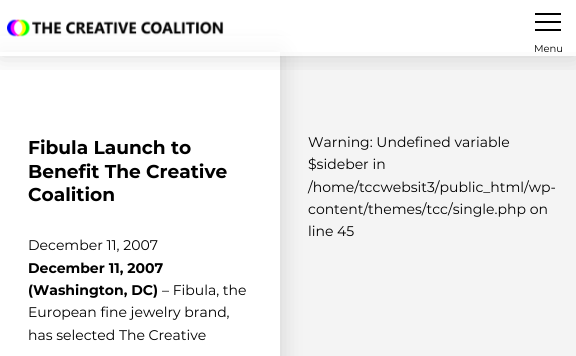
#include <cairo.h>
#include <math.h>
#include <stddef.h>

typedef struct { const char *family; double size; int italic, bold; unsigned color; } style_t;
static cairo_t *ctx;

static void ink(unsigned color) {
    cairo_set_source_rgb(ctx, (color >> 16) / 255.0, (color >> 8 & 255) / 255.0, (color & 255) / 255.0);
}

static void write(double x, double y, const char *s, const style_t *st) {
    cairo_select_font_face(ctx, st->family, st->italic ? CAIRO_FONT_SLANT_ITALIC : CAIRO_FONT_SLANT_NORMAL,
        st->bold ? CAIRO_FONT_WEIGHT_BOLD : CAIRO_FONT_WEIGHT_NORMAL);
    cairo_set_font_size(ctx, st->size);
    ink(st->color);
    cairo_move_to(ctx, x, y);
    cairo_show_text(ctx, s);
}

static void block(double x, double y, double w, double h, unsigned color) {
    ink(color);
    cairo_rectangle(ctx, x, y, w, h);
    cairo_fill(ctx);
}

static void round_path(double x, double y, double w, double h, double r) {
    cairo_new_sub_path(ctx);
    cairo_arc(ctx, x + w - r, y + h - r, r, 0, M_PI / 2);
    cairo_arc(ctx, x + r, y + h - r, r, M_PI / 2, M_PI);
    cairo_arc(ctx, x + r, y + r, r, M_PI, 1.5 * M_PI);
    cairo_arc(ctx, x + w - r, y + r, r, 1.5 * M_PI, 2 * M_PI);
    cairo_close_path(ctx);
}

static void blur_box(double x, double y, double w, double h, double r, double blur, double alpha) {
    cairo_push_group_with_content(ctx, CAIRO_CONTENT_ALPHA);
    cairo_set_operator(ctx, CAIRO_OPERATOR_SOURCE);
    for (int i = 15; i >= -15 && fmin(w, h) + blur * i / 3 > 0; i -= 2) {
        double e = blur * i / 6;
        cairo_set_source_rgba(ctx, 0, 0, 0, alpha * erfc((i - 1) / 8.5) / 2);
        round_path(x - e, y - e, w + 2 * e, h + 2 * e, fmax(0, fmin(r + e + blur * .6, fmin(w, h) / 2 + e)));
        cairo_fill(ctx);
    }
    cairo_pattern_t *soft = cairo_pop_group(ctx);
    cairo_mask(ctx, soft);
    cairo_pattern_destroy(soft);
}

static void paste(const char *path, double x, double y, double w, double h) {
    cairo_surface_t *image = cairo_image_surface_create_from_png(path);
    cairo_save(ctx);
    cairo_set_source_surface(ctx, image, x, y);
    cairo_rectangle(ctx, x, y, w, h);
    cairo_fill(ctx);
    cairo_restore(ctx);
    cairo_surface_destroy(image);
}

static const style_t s1 = {"Montserrat", 10, 0, 0, 0x000000};
static const style_t s2 = {"Montserrat", 18.6, 0, 1, 0x000000};
static const style_t s3 = {"Montserrat", 14, 0, 0, 0x000000};
static const style_t s4 = {"Montserrat", 14, 0, 1, 0x000000};

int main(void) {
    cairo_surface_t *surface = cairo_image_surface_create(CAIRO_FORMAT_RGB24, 576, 356);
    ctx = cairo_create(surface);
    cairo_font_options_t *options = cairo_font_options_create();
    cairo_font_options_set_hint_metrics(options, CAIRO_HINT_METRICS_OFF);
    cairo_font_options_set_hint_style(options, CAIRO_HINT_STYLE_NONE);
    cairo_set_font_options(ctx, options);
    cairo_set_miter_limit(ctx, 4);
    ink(0xffffff);
    cairo_paint(ctx);
    block(280, 52, 296, 304, 0xf4f4f4);
    cairo_save(ctx);
    cairo_rectangle(ctx, 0, 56, 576, 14);
    cairo_clip(ctx);
    ink(0x000000);
    blur_box(0, 0, 576, 56, 0, 12.5, 0.15);
    cairo_restore(ctx);
    cairo_save(ctx);
    cairo_set_fill_rule(ctx, CAIRO_FILL_RULE_EVEN_ODD);
    cairo_new_path(ctx);
    cairo_move_to(ctx, 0, 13);
    cairo_line_to(ctx, 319, 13);
    cairo_line_to(ctx, 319, 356);
    cairo_line_to(ctx, 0, 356);
    cairo_close_path(ctx);
    cairo_move_to(ctx, 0, 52);
    cairo_line_to(ctx, 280, 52);
    cairo_line_to(ctx, 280, 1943);
    cairo_line_to(ctx, 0, 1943);
    cairo_close_path(ctx);
    cairo_clip(ctx);
    ink(0x000000);
    blur_box(0, 52, 280, 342, 0, 12.5, 0.15);
    cairo_restore(ctx);
    cairo_set_source_rgba(ctx, 1, 1, 1, 0.7);
    cairo_rectangle(ctx, 0, 36, 576, 20);
    cairo_fill(ctx);
    paste("pic1.png", 7, 19, 217, 18);
    block(535, 13, 26, 2, 0x000000);
    block(535, 21, 26, 2, 0x000000);
    block(535, 29, 26, 2, 0x000000);
    write(534, 52, "Menu", &s1);
    write(28, 154, "Fibula Launch to", &s2);
    write(28, 178, "Benefit The Creative", &s2);
    write(28, 201, "Coalition", &s2);
    write(28, 250, "December 11, 2007", &s3);
    write(28, 273, "December 11, 2007", &s4);
    write(28, 295, "(Washington, DC)", &s4);
    write(162, 295, "– Fibula, the", &s3);
    write(28, 317, "European fine jewelry brand,", &s3);
    write(28, 340, "has selected The Creative", &s3);
    write(308, 147, "Warning: Undefined variable", &s3);
    write(308, 169, "$sideber in", &s3);
    write(308, 192, "/home/tccwebsit3/public_html/wp-", &s3);
    write(308, 214, "content/themes/tcc/single.php on", &s3);
    write(308, 236, "line 45", &s3);
    cairo_surface_write_to_png(surface, "screenshot.png");
    cairo_font_options_destroy(options);
    cairo_destroy(ctx);
    cairo_surface_destroy(surface);
    return 0;
}
